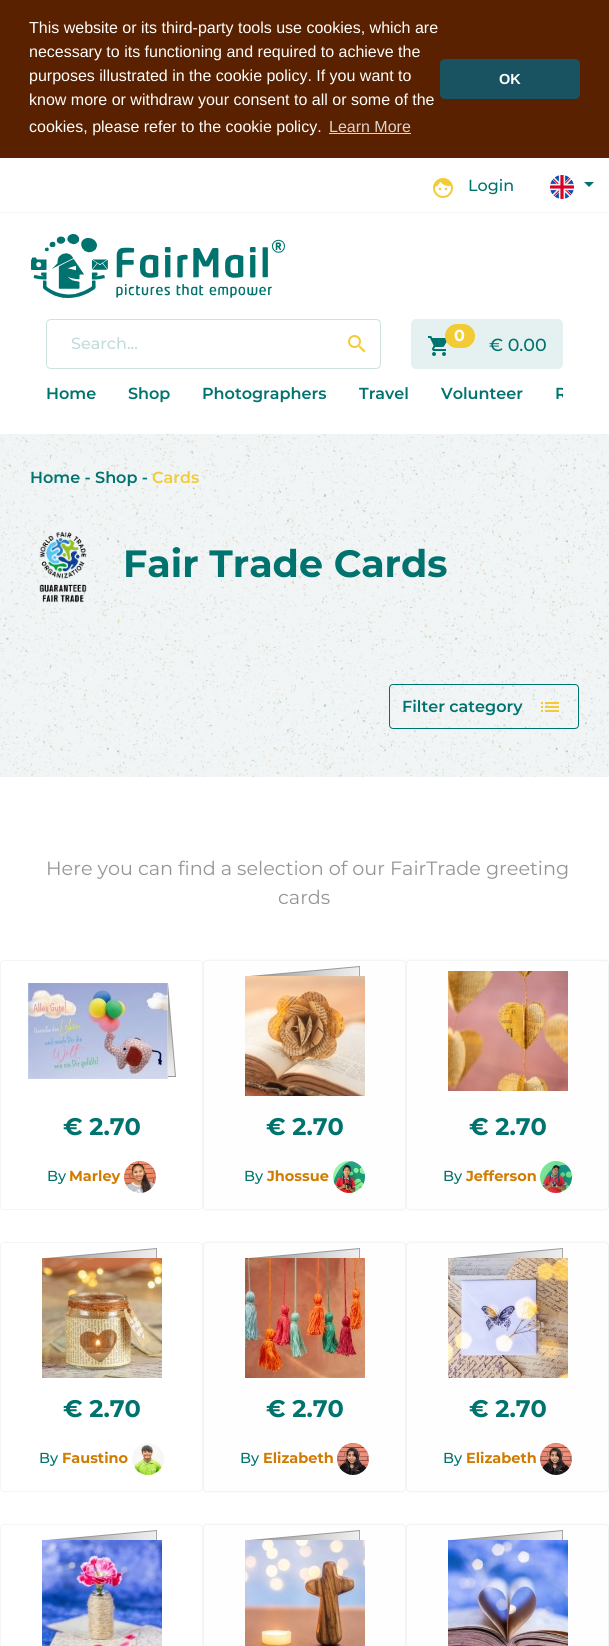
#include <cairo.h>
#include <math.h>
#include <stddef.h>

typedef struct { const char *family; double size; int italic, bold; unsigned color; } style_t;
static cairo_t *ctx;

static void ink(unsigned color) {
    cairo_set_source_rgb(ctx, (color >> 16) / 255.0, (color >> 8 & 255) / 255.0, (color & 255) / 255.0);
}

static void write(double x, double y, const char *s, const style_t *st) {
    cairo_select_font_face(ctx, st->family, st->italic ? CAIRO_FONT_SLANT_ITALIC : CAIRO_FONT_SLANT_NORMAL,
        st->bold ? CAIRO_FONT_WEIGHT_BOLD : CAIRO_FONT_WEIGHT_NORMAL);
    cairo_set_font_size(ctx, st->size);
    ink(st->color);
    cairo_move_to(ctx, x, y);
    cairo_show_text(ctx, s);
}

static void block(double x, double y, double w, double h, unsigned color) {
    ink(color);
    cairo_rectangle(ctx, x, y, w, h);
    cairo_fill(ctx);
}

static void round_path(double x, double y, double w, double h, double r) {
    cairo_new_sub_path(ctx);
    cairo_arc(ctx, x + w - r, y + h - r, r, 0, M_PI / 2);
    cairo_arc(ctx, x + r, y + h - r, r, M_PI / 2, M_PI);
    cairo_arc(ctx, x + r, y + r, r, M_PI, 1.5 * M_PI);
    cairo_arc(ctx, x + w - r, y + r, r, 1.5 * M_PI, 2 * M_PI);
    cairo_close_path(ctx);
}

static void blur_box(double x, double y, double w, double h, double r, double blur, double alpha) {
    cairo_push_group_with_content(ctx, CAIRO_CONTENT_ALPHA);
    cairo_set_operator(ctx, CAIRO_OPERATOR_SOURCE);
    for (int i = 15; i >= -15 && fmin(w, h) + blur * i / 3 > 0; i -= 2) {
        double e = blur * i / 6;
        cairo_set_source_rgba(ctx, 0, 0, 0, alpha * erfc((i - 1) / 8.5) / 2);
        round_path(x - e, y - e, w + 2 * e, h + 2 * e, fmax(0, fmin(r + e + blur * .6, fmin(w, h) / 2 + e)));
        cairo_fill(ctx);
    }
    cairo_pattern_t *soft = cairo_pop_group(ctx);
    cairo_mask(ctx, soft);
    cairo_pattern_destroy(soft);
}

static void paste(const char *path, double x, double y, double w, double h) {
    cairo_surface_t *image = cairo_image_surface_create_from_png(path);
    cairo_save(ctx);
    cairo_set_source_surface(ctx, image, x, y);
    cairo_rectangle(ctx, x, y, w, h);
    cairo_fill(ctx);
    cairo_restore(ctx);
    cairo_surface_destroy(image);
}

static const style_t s1 = {"Liberation Sans", 16, 0, 0, 0xffffff};
static const style_t s2 = {"Liberation Sans", 16, 0, 0, 0xded3cc};
static const style_t s3 = {"Liberation Sans", 14.5, 0, 1, 0xffffff};
static const style_t s4 = {"Montserrat Medium", 16, 0, 0, 0x00736e};
static const style_t s5 = {"Montserrat Medium", 16, 0, 0, 0xc1dddb};
static const style_t s6 = {"Montserrat", 16, 0, 1, 0xffffff};
static const style_t s7 = {"Montserrat Medium", 17.5, 0, 0, 0x00736e};
static const style_t s8 = {"Montserrat SemiBold", 16, 0, 0, 0x00736e};
static const style_t s9 = {"Montserrat SemiBold", 16, 0, 0, 0xf3cb34};
static const style_t s10 = {"Montserrat", 38, 0, 1, 0x00736e};
static const style_t s11 = {"Montserrat", 19.2, 0, 0, 0x959595};
static const style_t s12 = {"Montserrat", 24, 0, 1, 0x00736e};
static const style_t s13 = {"Montserrat Medium", 14.5, 0, 0, 0x00736e};
static const style_t s14 = {"Montserrat", 14.5, 0, 1, 0xd17b00};

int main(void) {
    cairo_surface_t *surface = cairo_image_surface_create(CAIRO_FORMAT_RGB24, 609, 1646);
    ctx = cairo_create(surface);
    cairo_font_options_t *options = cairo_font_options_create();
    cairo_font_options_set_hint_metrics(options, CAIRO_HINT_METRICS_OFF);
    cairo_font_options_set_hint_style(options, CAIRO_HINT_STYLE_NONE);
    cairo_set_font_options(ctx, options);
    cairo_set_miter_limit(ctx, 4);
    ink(0xffffff);
    cairo_paint(ctx);
    block(0, 0, 609, 158, 0x592100);
    write(29, 33, "This website or its third-party tools use cookies, which are", &s1);
    write(29, 57, "necessary to its functioning and required to achieve the", &s1);
    write(29, 81, "purposes illustrated in the cookie policy. If you want to", &s1);
    write(29, 105, "know more or withdraw your consent to all or some of the", &s1);
    write(29, 132, "cookies, please refer to the cookie policy.", &s1);
    write(329, 132, "Learn More", &s2);
    block(329, 133, 82, 1, 0xded3cc);
    ink(0x195361);
    round_path(440, 59, 140, 40, 5);
    cairo_fill(ctx);
    write(499, 84, "OK", &s3);
    block(0, 212, 609, 1, 0xf1f5f6);
    paste("pic1.png", 433, 178, 20, 20);
    write(468, 191, "Login", &s4);
    paste("pic2.png", 550, 175, 24, 24);
    cairo_new_path(ctx);
    cairo_move_to(ctx, 584, 182);
    cairo_line_to(ctx, 594, 182);
    cairo_line_to(ctx, 589, 187);
    cairo_close_path(ctx);
    cairo_fill(ctx);
    paste("pic3.png", 31, 234, 254, 64);
    round_path(46.5, 319.5, 334, 49, 4.5);
    ink(0xcce3e2);
    cairo_set_line_width(ctx, 1);
    cairo_stroke(ctx);
    write(71, 349, "Search...", &s5);
    paste("pic4.png", 348, 335, 18, 18);
    ink(0xe5f1f0);
    round_path(411, 319, 152, 50, 5);
    cairo_fill(ctx);
    paste("pic5.png", 428, 336, 19, 20);
    ink(0xf3cb34);
    round_path(445, 324, 30, 24, 12);
    cairo_fill(ctx);
    write(454, 341, "0", &s6);
    write(489, 351, "€ 0.00", &s7);
    write(46, 399, "Home", &s8);
    write(128, 399, "Shop", &s8);
    write(202, 399, "Photographers", &s8);
    write(359, 399, "Travel", &s8);
    write(441, 399, "Volunteer", &s8);
    cairo_save(ctx);
    cairo_rectangle(ctx, 46, 369, 517, 49);
    cairo_clip(ctx);
    write(555, 399, "R", &s8);
    cairo_restore(ctx);
    paste("pic6.png", 0, 434, 609, 343);
    write(30, 483, "Home - Shop -", &s8);
    write(152, 483, "Cards", &s9);
    paste("pic7.png", 39, 531, 48, 72);
    write(123, 577, "Fair Trade Cards", &s10);
    round_path(389.5, 684.5, 189, 44, 3.5);
    cairo_stroke(ctx);
    write(402, 712, "Filter category", &s8);
    paste("pic8.png", 541, 702, 18, 10);
    write(46, 875, "Here you can find a selection of our FairTrade greeting", &s11);
    write(278, 904, "cards", &s11);
    round_path(0.5, 960.5, 202, 249, 3.5);
    ink(0xf1f5f6);
    cairo_stroke(ctx);
    paste("pic9.png", 28, 983, 148, 96);
    write(63, 1135, "€ 2.70", &s12);
    write(47, 1181, "By", &s13);
    write(69, 1181, "Marley", &s14);
    paste("pic10.png", 124, 1161, 32, 32);
    ink(0xf1f5f6);
    blur_box(203, 960, 203, 250, 4, 1, 1);
    ink(0xfefefe);
    round_path(203.5, 960.5, 202, 249, 3.5);
    cairo_fill_preserve(ctx);
    ink(0xf1f5f6);
    cairo_stroke(ctx);
    paste("pic11.png", 245, 966, 120, 130);
    write(266, 1135, "€ 2.70", &s12);
    write(244, 1181, "By", &s13);
    write(267, 1181, "Jhossue", &s14);
    paste("pic12.png", 333, 1161, 32, 32);
    ink(0xf1f5f6);
    blur_box(406, 960, 203, 250, 4, 1, 1);
    ink(0xfefefe);
    round_path(406.5, 960.5, 202, 249, 3.5);
    cairo_fill_preserve(ctx);
    ink(0xf1f5f6);
    cairo_stroke(ctx);
    paste("pic13.png", 448, 971, 120, 120);
    write(469, 1135, "€ 2.70", &s12);
    write(443, 1181, "By", &s13);
    write(466, 1181, "Jefferson", &s14);
    paste("pic14.png", 540, 1161, 32, 32);
    round_path(0.5, 1242.5, 202, 249, 3.5);
    ink(0xf1f5f6);
    cairo_stroke(ctx);
    paste("pic15.png", 42, 1248, 120, 130);
    write(63, 1417, "€ 2.70", &s12);
    write(39, 1463, "By", &s13);
    write(62, 1463, "Faustino", &s14);
    paste("pic16.png", 132, 1443, 32, 32);
    ink(0xf1f5f6);
    blur_box(203, 1242, 203, 250, 4, 1, 1);
    ink(0xfefefe);
    round_path(203.5, 1242.5, 202, 249, 3.5);
    cairo_fill_preserve(ctx);
    ink(0xf1f5f6);
    cairo_stroke(ctx);
    paste("pic17.png", 245, 1248, 120, 130);
    write(266, 1417, "€ 2.70", &s12);
    write(240, 1463, "By", &s13);
    write(263, 1463, "Elizabeth", &s14);
    paste("pic18.png", 337, 1443, 32, 32);
    ink(0xf1f5f6);
    blur_box(406, 1242, 203, 250, 4, 1, 1);
    ink(0xfefefe);
    round_path(406.5, 1242.5, 202, 249, 3.5);
    cairo_fill_preserve(ctx);
    ink(0xf1f5f6);
    cairo_stroke(ctx);
    paste("pic19.png", 448, 1248, 120, 130);
    write(469, 1417, "€ 2.70", &s12);
    write(443, 1463, "By", &s13);
    write(466, 1463, "Elizabeth", &s14);
    paste("pic20.png", 540, 1443, 32, 32);
    round_path(0.5, 1524.5, 202, 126, 3.5);
    ink(0xf1f5f6);
    cairo_stroke(ctx);
    paste("pic21.png", 42, 1530, 120, 116);
    ink(0xf1f5f6);
    blur_box(203, 1524, 203, 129, 4, 1, 1);
    ink(0xfefefe);
    round_path(203.5, 1524.5, 202, 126, 3.5);
    cairo_fill_preserve(ctx);
    ink(0xf1f5f6);
    cairo_stroke(ctx);
    paste("pic22.png", 245, 1530, 120, 116);
    ink(0xf1f5f6);
    blur_box(406, 1524, 203, 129, 4, 1, 1);
    ink(0xfefefe);
    round_path(406.5, 1524.5, 202, 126, 3.5);
    cairo_fill_preserve(ctx);
    ink(0xf1f5f6);
    cairo_stroke(ctx);
    paste("pic23.png", 448, 1530, 120, 116);
    cairo_surface_write_to_png(surface, "screenshot.png");
    cairo_font_options_destroy(options);
    cairo_destroy(ctx);
    cairo_surface_destroy(surface);
    return 0;
}
